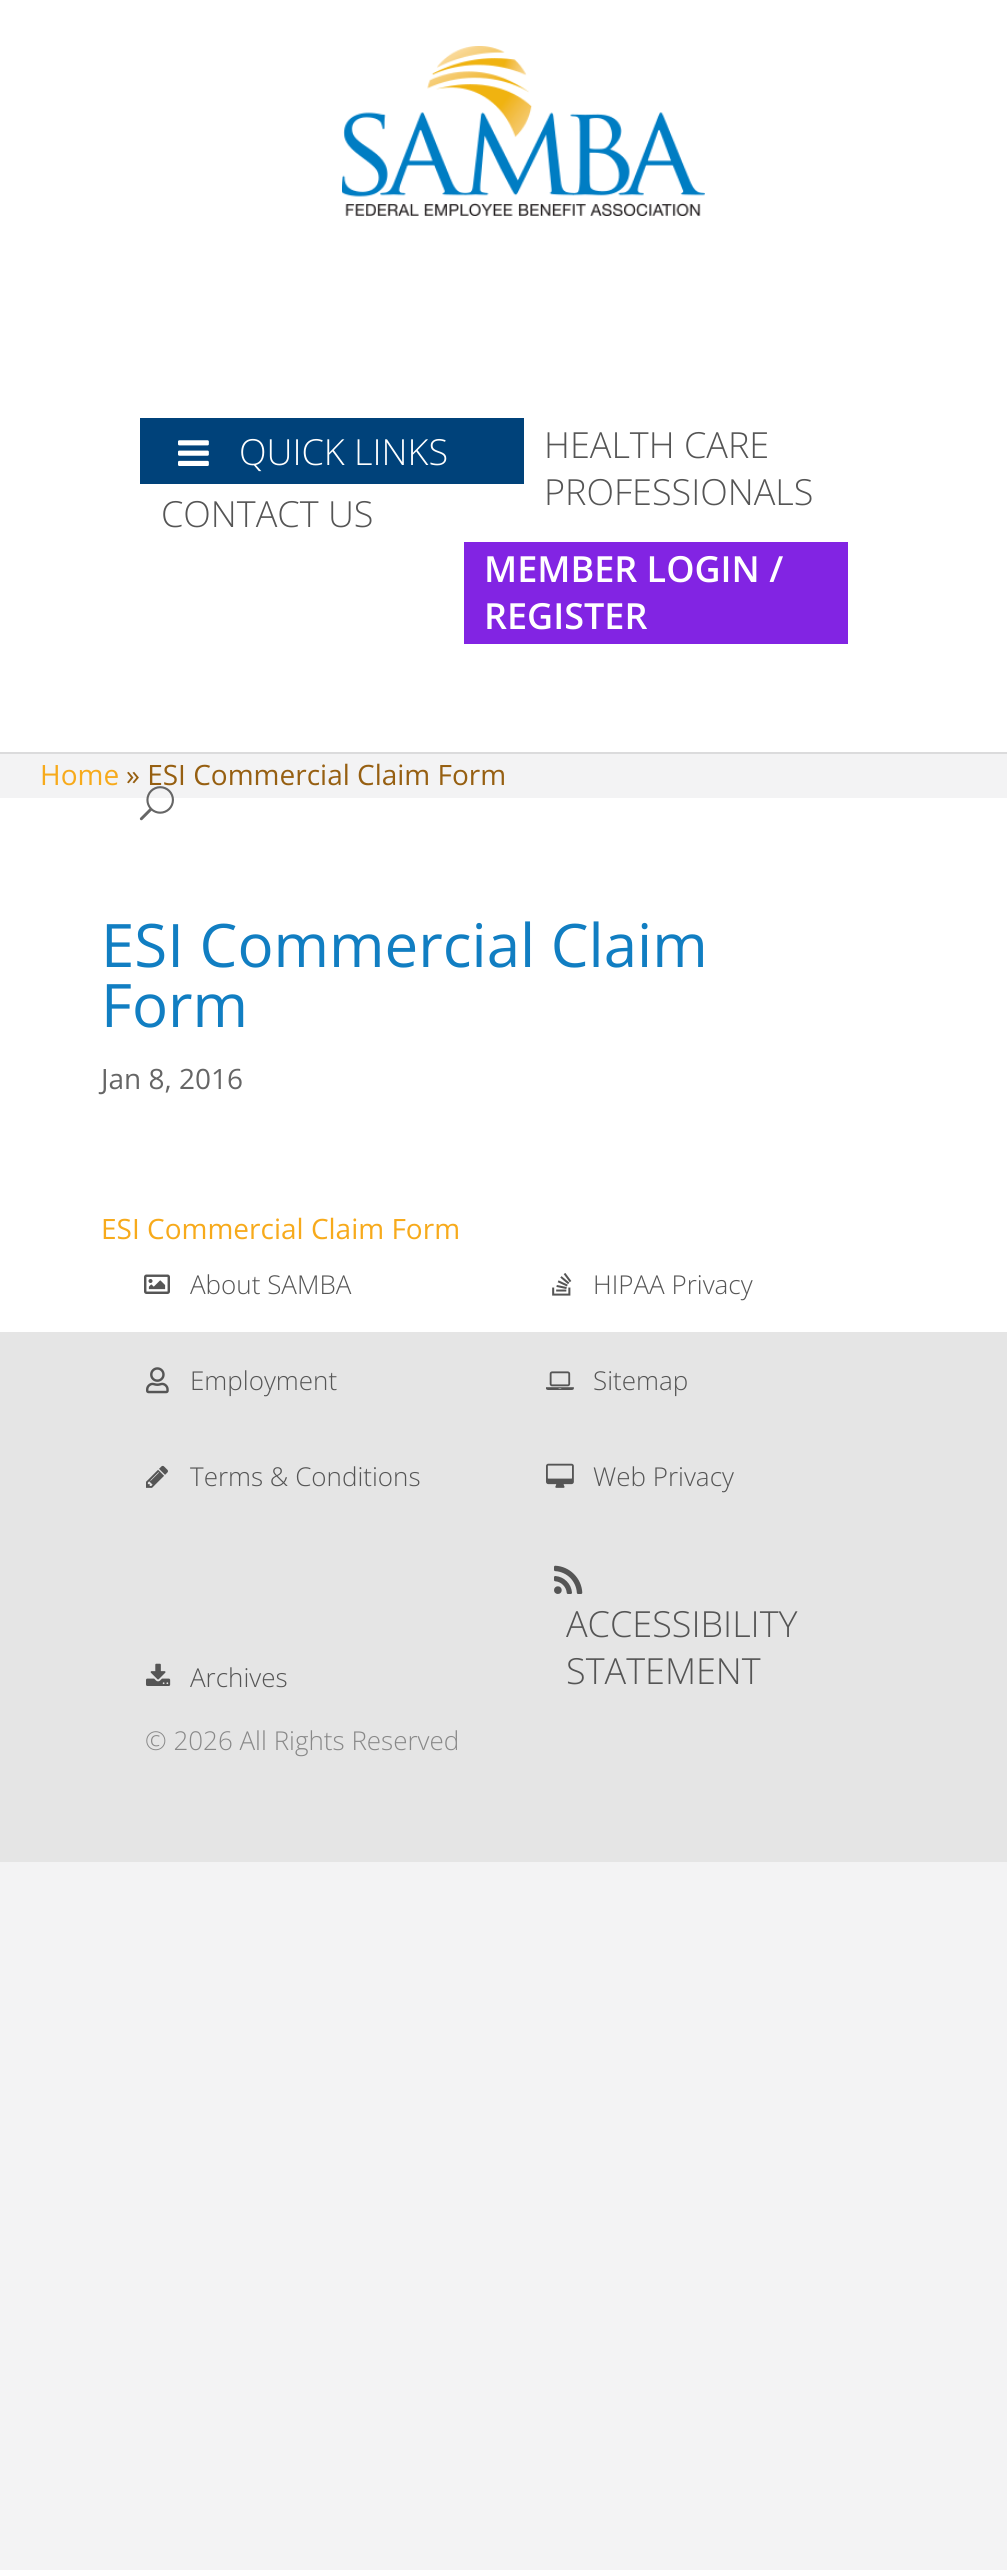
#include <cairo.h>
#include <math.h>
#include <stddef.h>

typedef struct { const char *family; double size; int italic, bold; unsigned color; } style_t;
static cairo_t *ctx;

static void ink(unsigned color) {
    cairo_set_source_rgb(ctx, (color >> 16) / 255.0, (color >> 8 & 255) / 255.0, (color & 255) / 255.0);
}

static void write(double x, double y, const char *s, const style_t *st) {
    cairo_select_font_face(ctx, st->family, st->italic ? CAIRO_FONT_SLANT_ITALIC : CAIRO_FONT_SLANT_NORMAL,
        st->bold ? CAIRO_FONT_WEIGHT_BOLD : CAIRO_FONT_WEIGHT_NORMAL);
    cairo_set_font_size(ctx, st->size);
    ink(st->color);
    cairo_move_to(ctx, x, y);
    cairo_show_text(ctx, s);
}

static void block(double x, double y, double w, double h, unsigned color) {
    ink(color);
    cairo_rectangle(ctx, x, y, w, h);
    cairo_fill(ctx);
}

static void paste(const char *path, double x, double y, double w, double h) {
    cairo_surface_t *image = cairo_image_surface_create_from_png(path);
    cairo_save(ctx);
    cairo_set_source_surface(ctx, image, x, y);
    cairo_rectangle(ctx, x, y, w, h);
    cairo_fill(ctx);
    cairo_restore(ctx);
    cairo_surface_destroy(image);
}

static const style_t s1 = {"Open Sans Light", 36, 0, 0, 0xffffff};
static const style_t s2 = {"Open Sans Light", 36, 0, 0, 0x555555};
static const style_t s3 = {"Open Sans SemiBold", 36, 0, 0, 0xffffff};
static const style_t s4 = {"Open Sans", 28, 0, 0, 0xf7aa1b};
static const style_t s5 = {"Open Sans", 28, 0, 0, 0x965f11};
static const style_t s6 = {"Open Sans", 60, 0, 0, 0x117ec2};
static const style_t s7 = {"Open Sans", 28, 0, 0, 0x666666};
static const style_t s8 = {"Open Sans Light", 26, 0, 0, 0x555555};
static const style_t s9 = {"Open Sans Light", 26, 0, 0, 0x888888};

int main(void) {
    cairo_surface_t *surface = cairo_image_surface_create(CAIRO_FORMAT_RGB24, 1007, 2570);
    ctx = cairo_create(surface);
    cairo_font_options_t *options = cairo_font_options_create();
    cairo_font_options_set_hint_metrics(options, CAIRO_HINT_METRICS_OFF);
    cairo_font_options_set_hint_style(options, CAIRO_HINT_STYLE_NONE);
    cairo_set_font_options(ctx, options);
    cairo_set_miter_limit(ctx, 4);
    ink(0xf3f3f4);
    cairo_paint(ctx);
    block(0, 752, 1007, 2, 0xdbdbdc);
    block(0, 0, 1007, 752, 0xffffff);
    paste("pic1.png", 342, 46, 363, 170);
    block(140, 418, 384, 66, 0x00427a);
    paste("pic2.png", 178, 440, 31, 26);
    write(239, 465, "QUICK LINKS", &s1);
    write(544, 458, "HEALTH CARE", &s2);
    write(544, 505, "PROFESSIONALS", &s2);
    write(161, 527, "CONTACT US", &s2);
    block(464, 542, 384, 102, 0x8224e3);
    write(484, 582, "MEMBER LOGIN /", &s3);
    write(484, 629, "REGISTER", &s3);
    block(0, 798, 1007, 534, 0xffffff);
    paste("pic3.png", 139, 786, 35, 35);
    write(40, 785, "Home", &s4);
    write(126, 785, "» ESI Commercial Claim Form", &s5);
    write(101, 967, "ESI Commercial Claim", &s6);
    write(101, 1027, "Form", &s6);
    write(101, 1089, "Jan 8, 2016", &s7);
    write(101, 1239, "ESI Commercial Claim Form", &s4);
    block(0, 1332, 1007, 530, 0xe5e5e5);
    paste("pic4.png", 144, 1274, 26, 20);
    write(190, 1294, "About SAMBA", &s8);
    paste("pic5.png", 552, 1273, 20, 23);
    write(593, 1294, "HIPAA Privacy", &s8);
    paste("pic6.png", 146, 1367, 23, 27);
    write(190, 1390, "Employment", &s8);
    paste("pic7.png", 546, 1371, 28, 19);
    write(593, 1390, "Sitemap", &s8);
    paste("pic8.png", 146, 1465, 22, 23);
    write(190, 1486, "Terms & Conditions", &s8);
    paste("pic9.png", 546, 1463, 28, 25);
    write(593, 1486, "Web Privacy", &s8);
    paste("pic10.png", 146, 1663, 25, 23);
    write(190, 1687, "Archives", &s8);
    paste("pic11.png", 554, 1565, 29, 29);
    write(566, 1637, "ACCESSIBILITY", &s2);
    write(566, 1684, "STATEMENT", &s2);
    write(145, 1750, "© 2026 All Rights Reserved", &s9);
    cairo_surface_write_to_png(surface, "screenshot.png");
    cairo_font_options_destroy(options);
    cairo_destroy(ctx);
    cairo_surface_destroy(surface);
    return 0;
}
